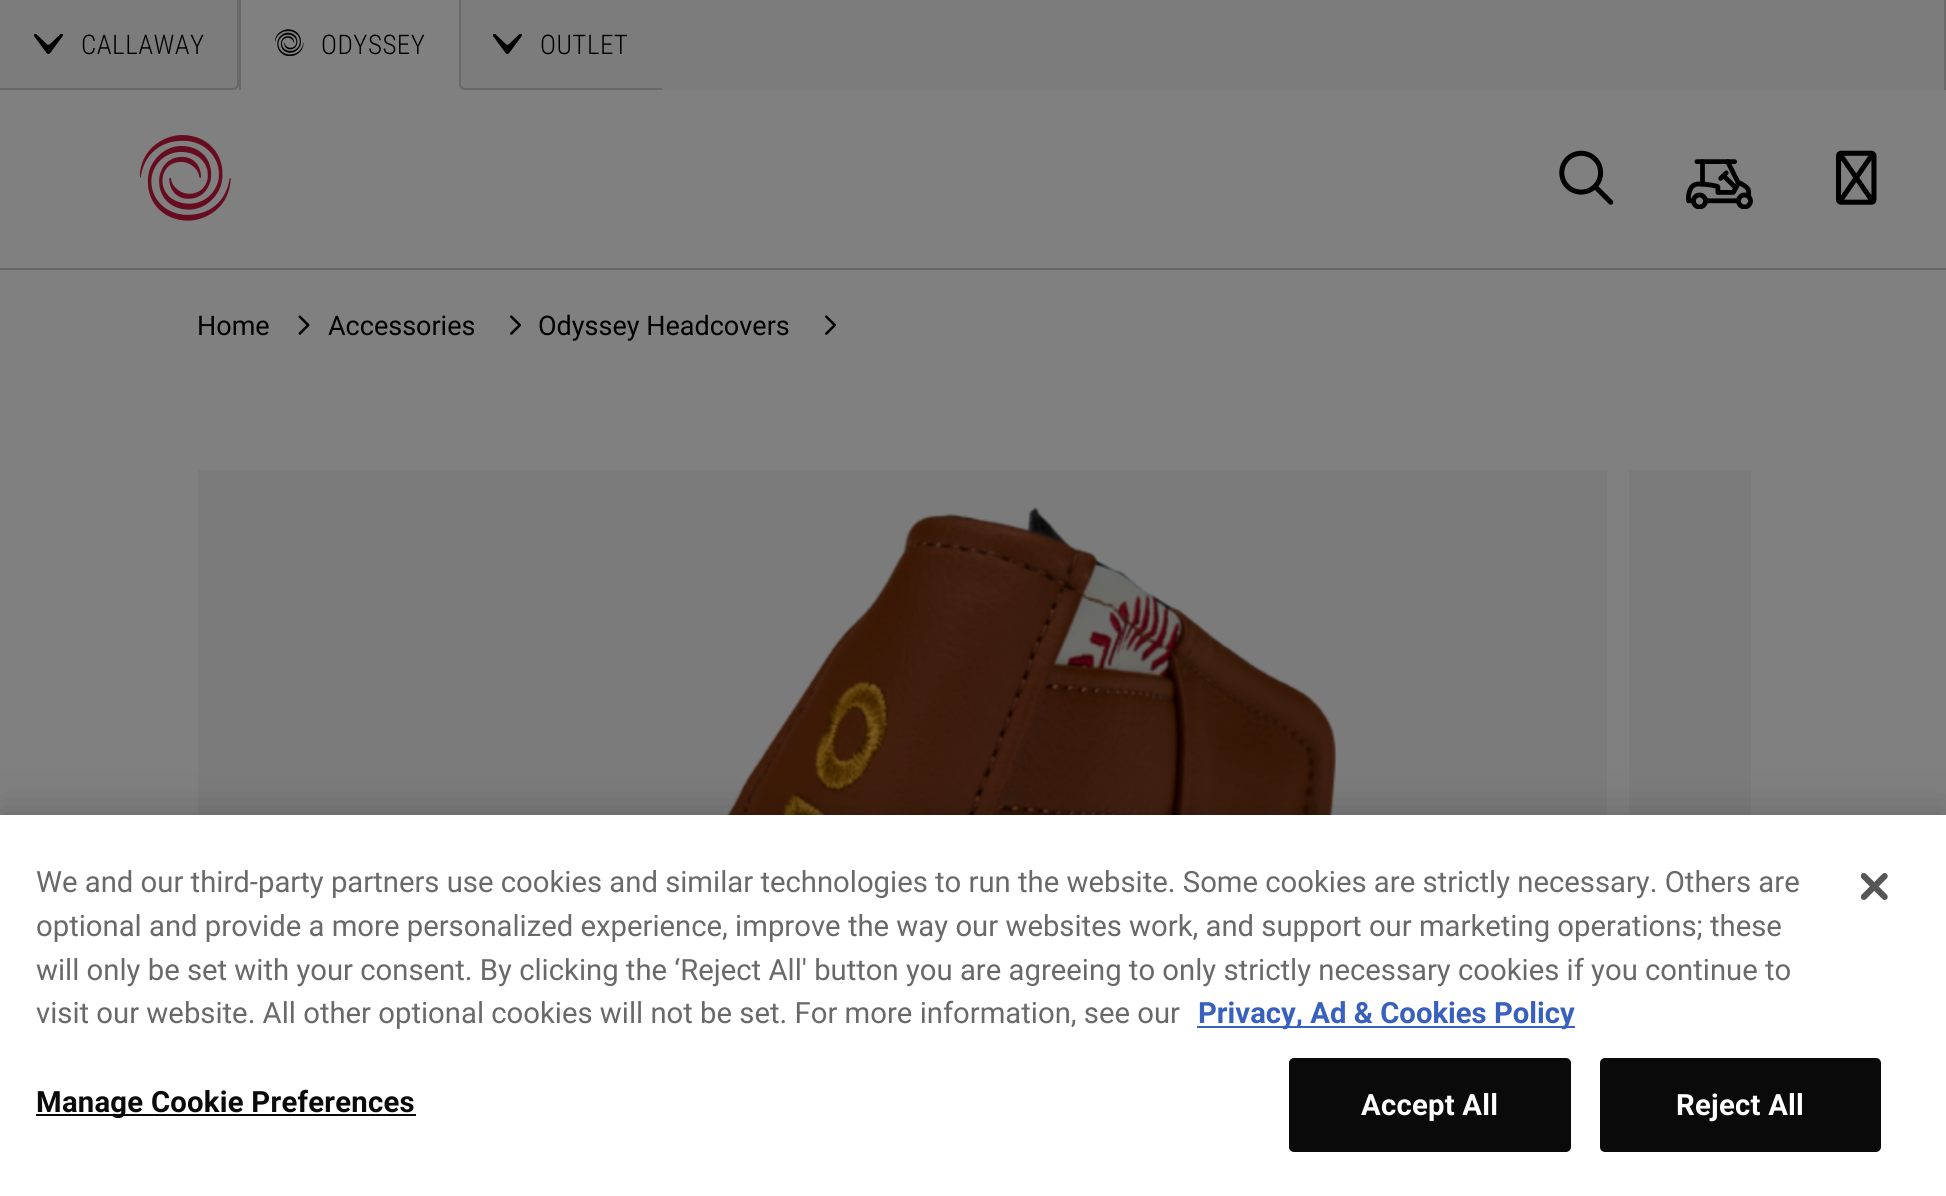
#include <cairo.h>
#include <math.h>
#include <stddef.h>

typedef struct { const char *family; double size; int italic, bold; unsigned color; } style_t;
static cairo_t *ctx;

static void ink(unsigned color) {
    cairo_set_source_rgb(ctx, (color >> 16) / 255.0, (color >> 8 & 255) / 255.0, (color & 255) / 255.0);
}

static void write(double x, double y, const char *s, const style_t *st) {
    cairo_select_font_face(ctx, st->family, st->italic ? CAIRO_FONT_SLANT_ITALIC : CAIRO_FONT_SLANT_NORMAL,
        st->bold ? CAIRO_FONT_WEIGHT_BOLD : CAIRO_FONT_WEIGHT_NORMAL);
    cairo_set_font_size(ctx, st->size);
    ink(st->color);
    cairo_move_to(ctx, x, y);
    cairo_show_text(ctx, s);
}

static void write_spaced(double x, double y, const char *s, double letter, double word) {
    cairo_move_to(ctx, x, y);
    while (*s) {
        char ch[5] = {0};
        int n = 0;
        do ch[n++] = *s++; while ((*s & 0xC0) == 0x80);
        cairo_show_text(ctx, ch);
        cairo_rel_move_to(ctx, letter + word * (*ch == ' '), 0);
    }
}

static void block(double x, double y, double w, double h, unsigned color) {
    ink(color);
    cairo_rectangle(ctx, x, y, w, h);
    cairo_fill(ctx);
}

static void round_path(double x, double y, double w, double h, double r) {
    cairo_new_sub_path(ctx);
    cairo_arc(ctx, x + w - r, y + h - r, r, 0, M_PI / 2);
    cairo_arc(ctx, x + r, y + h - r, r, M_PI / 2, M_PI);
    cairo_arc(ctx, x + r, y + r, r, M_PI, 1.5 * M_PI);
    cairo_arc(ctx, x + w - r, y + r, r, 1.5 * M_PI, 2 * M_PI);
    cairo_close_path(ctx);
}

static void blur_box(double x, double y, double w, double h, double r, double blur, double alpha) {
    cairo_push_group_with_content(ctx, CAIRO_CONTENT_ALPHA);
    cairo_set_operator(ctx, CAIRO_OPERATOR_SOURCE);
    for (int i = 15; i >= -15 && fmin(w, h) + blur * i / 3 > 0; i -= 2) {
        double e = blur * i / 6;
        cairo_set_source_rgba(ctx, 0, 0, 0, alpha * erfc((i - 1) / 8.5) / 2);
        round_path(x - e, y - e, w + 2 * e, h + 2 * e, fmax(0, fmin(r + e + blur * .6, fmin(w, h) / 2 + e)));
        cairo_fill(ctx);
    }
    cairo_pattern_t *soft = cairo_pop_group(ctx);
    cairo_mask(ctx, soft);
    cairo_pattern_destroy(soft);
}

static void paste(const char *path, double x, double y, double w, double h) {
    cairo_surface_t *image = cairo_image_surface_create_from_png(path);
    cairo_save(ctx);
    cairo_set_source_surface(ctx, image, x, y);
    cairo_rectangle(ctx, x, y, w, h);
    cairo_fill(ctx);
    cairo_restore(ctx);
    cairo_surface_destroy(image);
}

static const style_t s1 = {"Roboto", 27, 0, 0, 0x000000};
static const style_t s2 = {"Roboto", 29.27, 0, 0, 0x696969};
static const style_t s3 = {"Roboto", 29.27, 0, 1, 0x3860be};

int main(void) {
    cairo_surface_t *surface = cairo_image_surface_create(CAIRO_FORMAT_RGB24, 1946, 1196);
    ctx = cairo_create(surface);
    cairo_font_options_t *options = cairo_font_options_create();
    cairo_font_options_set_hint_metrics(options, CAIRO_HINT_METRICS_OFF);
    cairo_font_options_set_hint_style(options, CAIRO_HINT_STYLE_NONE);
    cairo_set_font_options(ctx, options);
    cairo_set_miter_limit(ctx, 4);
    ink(0x808080);
    cairo_paint(ctx);
    block(0, 268, 1946, 2, 0x676767);
    block(0, 0, 1944, 90, 0x7c7c7c);
    block(1944, 0, 2, 90, 0x696969);
    block(239, 0, 2, 90, 0x696969);
    block(0, 88, 241, 2, 0x696969);
    paste("pic1.png", 34, 34, 29, 20);
    cairo_select_font_face(ctx, "Roboto Condensed Light", CAIRO_FONT_SLANT_NORMAL, CAIRO_FONT_WEIGHT_NORMAL);
    cairo_set_font_size(ctx, 27);
    ink(0x000000);
    write_spaced(81, 54, "CALLAWAY", 0.5, 0);
    block(241, 0, 218, 90, 0x808080);
    cairo_new_path(ctx);
    cairo_move_to(ctx, 233, 90);
    cairo_line_to(ctx, 239, 90);
    cairo_line_to(ctx, 239, 84);
    cairo_curve_to(ctx, 239, 87.5, 236.5, 90, 233, 90);
    cairo_close_path(ctx);
    cairo_fill(ctx);
    cairo_save(ctx);
    cairo_rectangle(ctx, 234, 0, 7, 90);
    cairo_clip(ctx);
    ink(0x696969);
    cairo_new_path(ctx);
    cairo_move_to(ctx, 237, 0);
    cairo_line_to(ctx, 237, 84);
    cairo_curve_to(ctx, 237, 86, 235, 88, 233, 88);
    cairo_curve_to(ctx, 231, 88, 229, 86, 229, 84);
    cairo_line_to(ctx, 229, 0);
    cairo_line_to(ctx, 227, 0);
    cairo_line_to(ctx, 227, 84);
    cairo_curve_to(ctx, 227, 87, 230, 90, 233, 90);
    cairo_curve_to(ctx, 237, 90, 239, 87, 239, 84);
    cairo_line_to(ctx, 239, 0);
    cairo_close_path(ctx);
    cairo_fill(ctx);
    cairo_restore(ctx);
    paste("pic2.png", 275, 29, 29, 27);
    ink(0x000000);
    write_spaced(321, 54, "ODYSSEY", 0.5, 0);
    block(459, 88, 203, 2, 0x696969);
    ink(0x808080);
    cairo_new_path(ctx);
    cairo_move_to(ctx, 459, 84);
    cairo_line_to(ctx, 459, 90);
    cairo_line_to(ctx, 465, 90);
    cairo_curve_to(ctx, 461.5, 90, 459, 87.5, 459, 84);
    cairo_close_path(ctx);
    cairo_fill(ctx);
    cairo_save(ctx);
    cairo_rectangle(ctx, 459, 0, 7, 90);
    cairo_clip(ctx);
    ink(0x696969);
    cairo_new_path(ctx);
    cairo_move_to(ctx, 469, 0);
    cairo_line_to(ctx, 469, 84);
    cairo_curve_to(ctx, 469, 86, 467, 88, 465, 88);
    cairo_curve_to(ctx, 463, 88, 461, 86, 461, 84);
    cairo_line_to(ctx, 461, 0);
    cairo_line_to(ctx, 459, 0);
    cairo_line_to(ctx, 459, 84);
    cairo_curve_to(ctx, 459, 87, 462, 90, 465, 90);
    cairo_curve_to(ctx, 468, 90, 471, 87, 471, 84);
    cairo_line_to(ctx, 471, 0);
    cairo_close_path(ctx);
    cairo_fill(ctx);
    cairo_restore(ctx);
    paste("pic1.png", 493, 34, 29, 20);
    ink(0x000000);
    write_spaced(540, 54, "OUTLET", 0.5, 0);
    paste("pic3.png", 140, 135, 91, 86);
    paste("pic4.png", 1559, 150, 55, 55);
    paste("pic5.png", 1686, 159, 67, 50);
    paste("pic6.png", 1836, 150, 41, 55);
    write(197, 335, "Home", &s1);
    paste("pic7.png", 298, 315, 12, 20);
    write(328, 335, "Accessories", &s1);
    paste("pic8.png", 510, 315, 11, 20);
    write(538, 335, "Odyssey Headcovers", &s1);
    paste("pic8.png", 825, 315, 11, 20);
    block(198, 470, 1409, 345, 0x7b7b7b);
    paste("pic9.png", 726, 506, 612, 309);
    block(1629, 470, 122, 345, 0x7b7b7b);
    ink(0x000000);
    blur_box(0, 815, 1946, 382, 0, 20, 0.2);
    block(0, 815, 1946, 381, 0xffffff);
    write(36, 892, "We and our third-party partners use cookies and similar technologies to run the website. Some cookies are strictly necessary. Others are", &s2);
    write(36, 936, "optional and provide a more personalized experience, improve the way our websites work, and support our marketing operations; these", &s2);
    write(36, 980, "will only be set with your consent. By clicking the ‘Reject All' button you are agreeing to only strictly necessary cookies if you continue to", &s2);
    write(36, 1023, "visit our website. All other optional cookies will not be set. For more information, see our", &s2);
    block(1197, 1026, 378, 2, 0x3860be);
    write(1198, 1023, "Privacy, Ad & Cookies Policy", &s3);
    block(36, 1114, 380, 2, 0x0a0a0a);
    write_spaced(36, 1112, "Manage Cookie Preferences", 0.25, 0);
    round_path(1290, 1059, 280, 92, 4);
    cairo_fill_preserve(ctx);
    cairo_stroke(ctx);
    ink(0xffffff);
    write_spaced(1361, 1115, "Accept All", 0.25, 0);
    ink(0x0a0a0a);
    round_path(1601, 1059, 279, 92, 4);
    cairo_fill_preserve(ctx);
    cairo_stroke(ctx);
    ink(0xffffff);
    write_spaced(1676, 1115, "Reject All", 0.25, 0);
    paste("pic10.png", 1861, 873, 27, 27);
    cairo_surface_write_to_png(surface, "screenshot.png");
    cairo_font_options_destroy(options);
    cairo_destroy(ctx);
    cairo_surface_destroy(surface);
    return 0;
}
